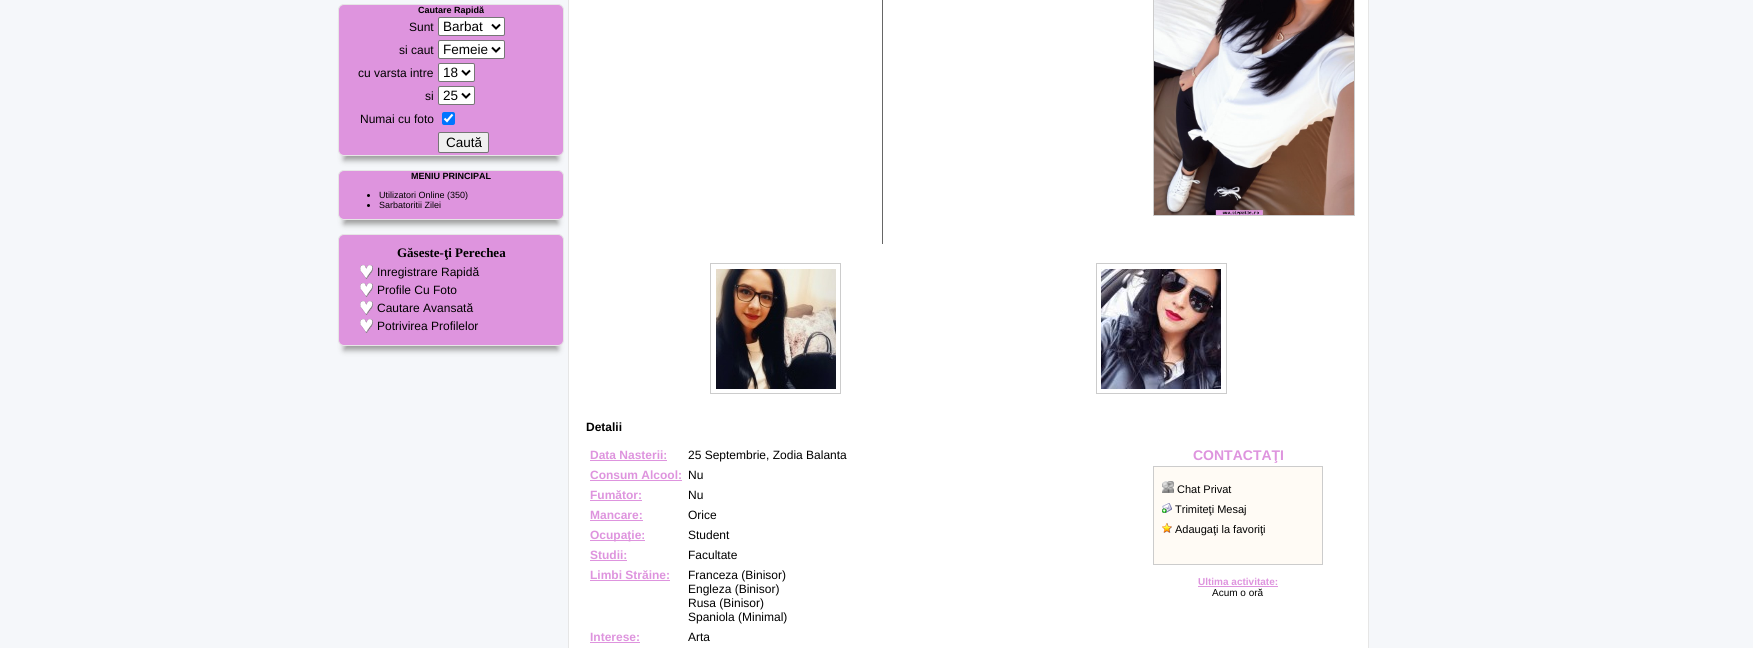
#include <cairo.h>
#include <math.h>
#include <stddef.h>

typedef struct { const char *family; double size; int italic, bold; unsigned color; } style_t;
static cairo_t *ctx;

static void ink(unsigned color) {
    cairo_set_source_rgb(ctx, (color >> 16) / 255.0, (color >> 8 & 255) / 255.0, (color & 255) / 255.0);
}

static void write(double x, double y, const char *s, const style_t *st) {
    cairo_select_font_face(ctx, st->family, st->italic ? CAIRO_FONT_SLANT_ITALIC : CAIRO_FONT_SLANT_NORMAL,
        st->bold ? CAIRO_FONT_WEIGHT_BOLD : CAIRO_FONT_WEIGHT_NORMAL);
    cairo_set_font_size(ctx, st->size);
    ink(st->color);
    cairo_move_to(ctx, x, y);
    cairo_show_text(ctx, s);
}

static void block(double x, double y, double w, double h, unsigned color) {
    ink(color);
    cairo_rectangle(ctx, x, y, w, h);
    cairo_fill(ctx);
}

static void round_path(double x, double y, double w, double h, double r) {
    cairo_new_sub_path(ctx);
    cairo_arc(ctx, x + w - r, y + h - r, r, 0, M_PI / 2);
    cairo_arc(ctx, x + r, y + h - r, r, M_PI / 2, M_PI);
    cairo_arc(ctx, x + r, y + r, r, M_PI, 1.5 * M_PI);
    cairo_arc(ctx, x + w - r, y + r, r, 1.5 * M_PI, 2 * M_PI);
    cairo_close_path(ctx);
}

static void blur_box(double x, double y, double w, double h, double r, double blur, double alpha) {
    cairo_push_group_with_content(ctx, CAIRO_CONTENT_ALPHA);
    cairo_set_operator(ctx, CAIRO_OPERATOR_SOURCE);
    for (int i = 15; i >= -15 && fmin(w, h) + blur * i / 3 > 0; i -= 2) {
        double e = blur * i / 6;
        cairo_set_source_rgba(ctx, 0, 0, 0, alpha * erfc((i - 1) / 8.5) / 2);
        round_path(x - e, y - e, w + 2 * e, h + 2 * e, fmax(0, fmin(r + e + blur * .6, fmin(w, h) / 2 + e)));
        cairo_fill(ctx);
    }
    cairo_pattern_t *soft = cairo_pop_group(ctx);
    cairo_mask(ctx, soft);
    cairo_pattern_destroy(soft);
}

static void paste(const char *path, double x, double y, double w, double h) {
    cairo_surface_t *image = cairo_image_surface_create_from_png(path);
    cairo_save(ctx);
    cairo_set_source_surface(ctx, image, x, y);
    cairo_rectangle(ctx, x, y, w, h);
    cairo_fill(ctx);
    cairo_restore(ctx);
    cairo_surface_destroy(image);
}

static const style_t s1 = {"Liberation Sans", 9, 0, 1, 0x000000};
static const style_t s2 = {"Liberation Sans", 12, 0, 0, 0x000000};
static const style_t s3 = {"Liberation Sans", 13.5, 0, 0, 0x000000};
static const style_t s4 = {"Liberation Sans", 9, 0, 0, 0x000000};
static const style_t s5 = {"Liberation Serif", 13, 0, 1, 0x000000};
static const style_t s6 = {"Liberation Sans", 12, 0, 1, 0x000000};
static const style_t s7 = {"Liberation Sans", 12, 0, 1, 0xde94de};
static const style_t s8 = {"Liberation Sans", 14, 0, 1, 0xde94de};
static const style_t s9 = {"Liberation Sans", 11, 0, 0, 0x000000};
static const style_t s10 = {"Liberation Sans", 10, 0, 1, 0xde94de};
static const style_t s11 = {"Liberation Sans", 10, 0, 0, 0x000000};

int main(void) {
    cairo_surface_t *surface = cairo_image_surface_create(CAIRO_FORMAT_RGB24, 1753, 648);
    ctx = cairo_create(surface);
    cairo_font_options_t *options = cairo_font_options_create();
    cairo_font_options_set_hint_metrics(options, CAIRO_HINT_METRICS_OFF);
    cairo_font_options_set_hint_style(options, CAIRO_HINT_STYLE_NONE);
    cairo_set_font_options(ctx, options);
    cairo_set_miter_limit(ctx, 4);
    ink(0xf5f7fa);
    cairo_paint(ctx);
    ink(0x999999);
    blur_box(344, 20, 214, 140, 0, 3, 1);
    ink(0xde94de);
    round_path(338.5, 4.5, 225, 151, 5.5);
    cairo_fill_preserve(ctx);
    ink(0xe6e6e6);
    cairo_set_line_width(ctx, 1);
    cairo_stroke(ctx);
    write(418, 13, "Cautare Rapidă", &s1);
    write(409, 31, "Sunt", &s2);
    ink(0xffffff);
    round_path(438.5, 17.5, 66, 18, 1.5);
    cairo_fill_preserve(ctx);
    ink(0x767676);
    cairo_stroke(ctx);
    cairo_new_path(ctx);
    cairo_move_to(ctx, 492, 24.5);
    cairo_line_to(ctx, 496, 28.5);
    cairo_line_to(ctx, 500, 24.5);
    ink(0x000000);
    cairo_set_line_width(ctx, 2);
    cairo_stroke(ctx);
    write(443, 31, "Barbat", &s3);
    write(399, 54, "si caut", &s2);
    ink(0xffffff);
    round_path(438.5, 40.5, 66, 18, 1.5);
    cairo_fill_preserve(ctx);
    ink(0x767676);
    cairo_set_line_width(ctx, 1);
    cairo_stroke(ctx);
    cairo_new_path(ctx);
    cairo_move_to(ctx, 492, 47.5);
    cairo_line_to(ctx, 496, 51.5);
    cairo_line_to(ctx, 500, 47.5);
    ink(0x000000);
    cairo_set_line_width(ctx, 2);
    cairo_stroke(ctx);
    write(443, 54, "Femeie", &s3);
    write(358, 77, "cu varsta intre", &s2);
    ink(0xffffff);
    round_path(438.5, 63.5, 36, 18, 1.5);
    cairo_fill_preserve(ctx);
    ink(0x767676);
    cairo_set_line_width(ctx, 1);
    cairo_stroke(ctx);
    cairo_new_path(ctx);
    cairo_move_to(ctx, 462, 70.5);
    cairo_line_to(ctx, 466, 74.5);
    cairo_line_to(ctx, 470, 70.5);
    ink(0x000000);
    cairo_set_line_width(ctx, 2);
    cairo_stroke(ctx);
    write(443, 77, "18", &s3);
    write(425, 100, "si", &s2);
    ink(0xffffff);
    round_path(438.5, 86.5, 36, 18, 1.5);
    cairo_fill_preserve(ctx);
    ink(0x767676);
    cairo_set_line_width(ctx, 1);
    cairo_stroke(ctx);
    cairo_new_path(ctx);
    cairo_move_to(ctx, 462, 93.5);
    cairo_line_to(ctx, 466, 97.5);
    cairo_line_to(ctx, 470, 93.5);
    ink(0x000000);
    cairo_set_line_width(ctx, 2);
    cairo_stroke(ctx);
    write(443, 100, "25", &s3);
    write(360, 123, "Numai cu foto", &s2);
    ink(0x0075ff);
    round_path(442, 112, 13, 13, 2);
    cairo_fill(ctx);
    cairo_new_path(ctx);
    cairo_move_to(ctx, 444.5, 118.5);
    cairo_line_to(ctx, 447, 121);
    cairo_line_to(ctx, 452.5, 114.5);
    ink(0xffffff);
    cairo_set_line_width(ctx, 2.1);
    cairo_stroke(ctx);
    ink(0xefefef);
    round_path(438.5, 132.5, 50, 20, 1.5);
    cairo_fill_preserve(ctx);
    ink(0x767676);
    cairo_set_line_width(ctx, 1);
    cairo_stroke(ctx);
    write(446, 147, "Caută", &s3);
    ink(0x999999);
    blur_box(344, 186, 214, 38, 0, 3, 1);
    ink(0xde94de);
    round_path(338.5, 170.5, 225, 49, 5.5);
    cairo_fill_preserve(ctx);
    ink(0xe6e6e6);
    cairo_stroke(ctx);
    write(411, 179, "MENIU PRINCIPAL", &s1);
    cairo_new_path(ctx);
    cairo_arc(ctx, 368.5, 195.5, 1.5, 0, 2 * M_PI);
    cairo_fill(ctx);
    write(379, 198, "Utilizatori Online (350)", &s4);
    cairo_new_path(ctx);
    cairo_arc(ctx, 368.5, 205.5, 1.5, 0, 2 * M_PI);
    cairo_fill(ctx);
    write(379, 208, "Sarbatoritii Zilei", &s4);
    ink(0x999999);
    blur_box(344, 250, 214, 100, 0, 3, 1);
    ink(0xde94de);
    round_path(338.5, 234.5, 225, 111, 5.5);
    cairo_fill_preserve(ctx);
    ink(0xe6e6e6);
    cairo_stroke(ctx);
    write(397, 257, "Găseste-ţi Perechea", &s5);
    paste("pic1.png", 360, 265, 13, 14);
    write(377, 276, "Inregistrare Rapidă", &s2);
    paste("pic1.png", 360, 283, 13, 14);
    write(377, 294, "Profile Cu Foto", &s2);
    paste("pic1.png", 360, 301, 13, 14);
    write(377, 312, "Cautare Avansată", &s2);
    paste("pic1.png", 360, 319, 13, 14);
    write(377, 330, "Potrivirea Profilelor", &s2);
    ink(0xffffff);
    cairo_rectangle(ctx, 568.5, -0.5, 800, 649);
    cairo_fill_preserve(ctx);
    ink(0xe6e6e6);
    cairo_stroke(ctx);
    block(882, 0, 1, 244, 0x666666);
    block(1153, 0, 202, 216, 0xcccccc);
    paste("pic2.png", 1154, 0, 200, 215);
    block(710, 263, 131, 131, 0xcccccc);
    block(711, 264, 129, 129, 0xffffff);
    paste("pic3.png", 716, 269, 120, 120);
    block(1096, 263, 131, 131, 0xcccccc);
    block(1097, 264, 129, 129, 0xffffff);
    paste("pic4.png", 1101, 269, 120, 120);
    write(586, 431, "Detalii", &s6);
    write(590, 459, "Data Nasterii:", &s7);
    block(590, 460, 77, 1, 0xde94de);
    write(688, 459, "25 Septembrie, Zodia Balanta", &s2);
    write(590, 479, "Consum Alcool:", &s7);
    block(590, 480, 92, 1, 0xde94de);
    write(688, 479, "Nu", &s2);
    write(590, 499, "Fumător:", &s7);
    block(590, 500, 52, 1, 0xde94de);
    write(688, 499, "Nu", &s2);
    write(590, 519, "Mancare:", &s7);
    block(590, 520, 53, 1, 0xde94de);
    write(688, 519, "Orice", &s2);
    block(590, 540, 55, 1, 0xde94de);
    write(590, 539, "Ocupaţie:", &s7);
    write(688, 539, "Student", &s2);
    write(590, 559, "Studii:", &s7);
    block(590, 560, 37, 1, 0xde94de);
    write(688, 559, "Facultate", &s2);
    write(590, 579, "Limbi Străine:", &s7);
    block(590, 580, 80, 1, 0xde94de);
    write(688, 579, "Franceza (Binisor)", &s2);
    write(688, 593, "Engleza (Binisor)", &s2);
    write(688, 607, "Rusa (Binisor)", &s2);
    write(688, 621, "Spaniola (Minimal)", &s2);
    write(590, 641, "Interese:", &s7);
    block(590, 642, 50, 1, 0xde94de);
    write(688, 641, "Arta", &s2);
    write(1193, 460, "CONTACTAŢI", &s8);
    block(1153, 466, 170, 99, 0xcccccc);
    block(1154, 467, 168, 97, 0xfffbf5);
    paste("pic5.png", 1162, 481, 12, 12);
    write(1177, 493, "Chat Privat", &s9);
    paste("pic6.png", 1162, 503, 10, 10);
    write(1175, 513, "Trimiteţi Mesaj", &s9);
    paste("pic7.png", 1162, 523, 10, 10);
    write(1175, 533, "Adaugaţi la favoriţi", &s9);
    write(1198, 585, "Ultima activitate:", &s10);
    block(1198, 586, 80, 1, 0xde94de);
    write(1212, 596, "Acum o oră", &s11);
    cairo_surface_write_to_png(surface, "screenshot.png");
    cairo_font_options_destroy(options);
    cairo_destroy(ctx);
    cairo_surface_destroy(surface);
    return 0;
}
